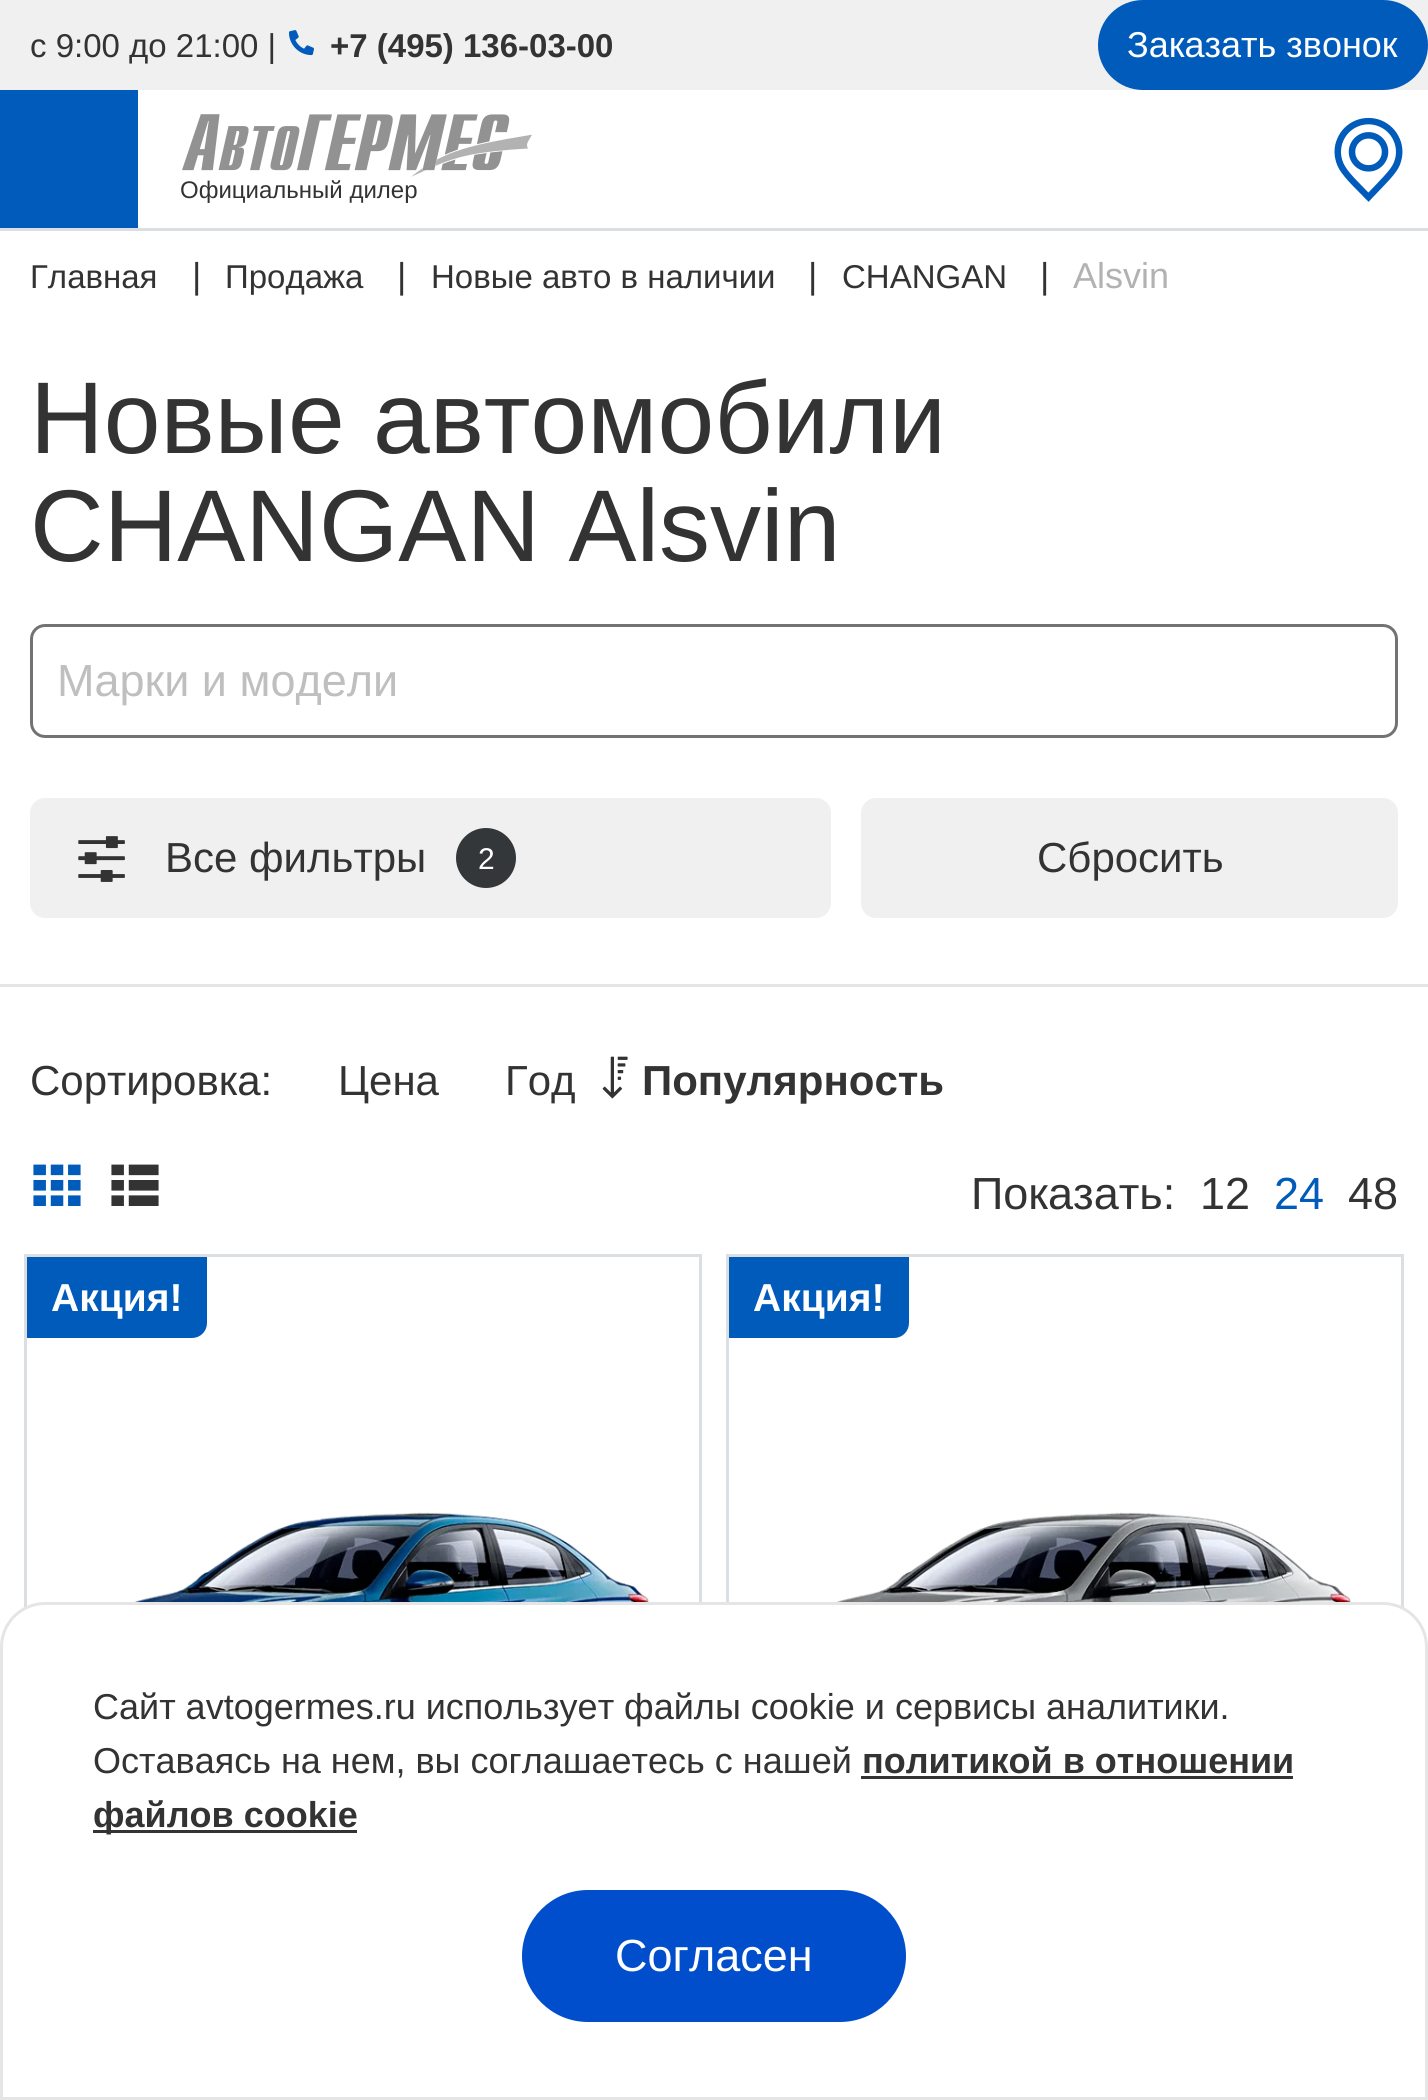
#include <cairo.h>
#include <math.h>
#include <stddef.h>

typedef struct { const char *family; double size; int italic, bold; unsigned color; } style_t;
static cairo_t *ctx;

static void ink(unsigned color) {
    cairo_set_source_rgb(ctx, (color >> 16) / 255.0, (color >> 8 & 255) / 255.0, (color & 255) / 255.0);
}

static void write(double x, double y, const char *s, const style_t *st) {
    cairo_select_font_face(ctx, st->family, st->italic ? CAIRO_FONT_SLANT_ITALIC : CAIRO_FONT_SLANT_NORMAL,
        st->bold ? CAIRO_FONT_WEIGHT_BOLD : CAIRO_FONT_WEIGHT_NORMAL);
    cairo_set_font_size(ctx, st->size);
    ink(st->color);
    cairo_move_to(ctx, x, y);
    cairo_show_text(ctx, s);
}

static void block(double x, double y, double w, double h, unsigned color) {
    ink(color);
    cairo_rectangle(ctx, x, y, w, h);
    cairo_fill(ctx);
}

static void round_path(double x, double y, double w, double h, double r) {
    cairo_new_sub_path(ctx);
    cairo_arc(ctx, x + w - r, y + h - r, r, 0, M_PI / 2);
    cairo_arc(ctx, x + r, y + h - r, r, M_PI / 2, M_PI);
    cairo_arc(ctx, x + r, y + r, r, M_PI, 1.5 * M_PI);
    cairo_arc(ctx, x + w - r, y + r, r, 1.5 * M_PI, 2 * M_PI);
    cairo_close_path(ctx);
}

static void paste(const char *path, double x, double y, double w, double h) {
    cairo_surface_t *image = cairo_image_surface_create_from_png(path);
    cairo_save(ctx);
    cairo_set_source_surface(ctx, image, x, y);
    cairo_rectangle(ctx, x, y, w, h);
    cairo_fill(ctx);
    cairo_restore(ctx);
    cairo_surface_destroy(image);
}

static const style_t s1 = {"Liberation Sans", 33, 0, 0, 0x333333};
static const style_t s2 = {"Liberation Sans", 33, 0, 1, 0x333333};
static const style_t s3 = {"Liberation Sans", 36, 0, 0, 0xffffff};
static const style_t s4 = {"Liberation Sans", 24, 0, 0, 0x333333};
static const style_t s5 = {"Liberation Sans", 36, 0, 0, 0x333333};
static const style_t s6 = {"Liberation Sans", 36, 0, 0, 0xb2b2b2};
static const style_t s7 = {"Liberation Sans", 102, 0, 0, 0x333333};
static const style_t s8 = {"Liberation Sans", 45, 0, 0, 0xbfbfbf};
static const style_t s9 = {"Liberation Sans", 42, 0, 0, 0x333333};
static const style_t s10 = {"Liberation Sans", 30, 0, 0, 0xffffff};
static const style_t s11 = {"Liberation Sans", 42, 0, 1, 0x333333};
static const style_t s12 = {"Liberation Sans", 45, 0, 0, 0x333333};
static const style_t s13 = {"Liberation Sans", 45, 0, 0, 0x005bbb};
static const style_t s14 = {"Liberation Sans", 39, 0, 1, 0xffffff};
static const style_t s15 = {"Liberation Sans", 36, 0, 1, 0x333333};
static const style_t s16 = {"Liberation Sans", 45, 0, 0, 0xffffff};

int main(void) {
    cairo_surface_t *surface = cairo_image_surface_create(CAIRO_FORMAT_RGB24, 1428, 2100);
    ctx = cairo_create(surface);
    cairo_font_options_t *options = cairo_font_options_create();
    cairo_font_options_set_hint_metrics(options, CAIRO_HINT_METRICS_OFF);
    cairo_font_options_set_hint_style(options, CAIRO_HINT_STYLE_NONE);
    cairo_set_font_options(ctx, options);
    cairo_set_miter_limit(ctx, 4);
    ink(0xffffff);
    cairo_paint(ctx);
    block(0, 0, 1428, 90, 0xf0f0f0);
    write(30, 57, "c 9:00 до 21:00 |", &s1);
    paste("pic1.png", 289, 30, 25, 26);
    write(330, 57, "+7 (495) 136-03-00", &s2);
    ink(0x005bbb);
    round_path(1099.5, 1.5, 327, 87, 43.5);
    cairo_fill_preserve(ctx);
    cairo_set_line_width(ctx, 3);
    cairo_stroke(ctx);
    write(1127, 57, "Заказать звонок", &s3);
    block(0, 228, 1428, 3, 0xdbdfe2);
    block(0, 90, 138, 138, 0x005bbb);
    paste("pic2.png", 182, 114, 350, 63);
    write(180, 198, "Официальный дилер", &s4);
    paste("pic3.png", 1334, 117, 69, 85);
    write(30, 288, "Главная", &s1);
    write(192, 288, "|", &s5);
    write(225, 288, "Продажа", &s1);
    write(397, 288, "|", &s5);
    write(431, 288, "Новые авто в наличии", &s1);
    write(808, 288, "|", &s5);
    write(842, 288, "CHANGAN", &s1);
    write(1040, 288, "|", &s5);
    write(1073, 288, "Alsvin", &s6);
    write(30, 453, "Новые автомобили", &s7);
    write(30, 561, "CHANGAN Alsvin", &s7);
    block(0, 984, 1428, 3, 0xe5e5e5);
    round_path(31.5, 625.5, 1365, 111, 13.5);
    ink(0x737373);
    cairo_stroke(ctx);
    write(57, 696, "Марки и модели", &s8);
    ink(0xf0f0f0);
    round_path(30, 798, 801, 120, 15);
    cairo_fill(ctx);
    paste("pic4.png", 78, 836, 47, 46);
    write(165, 872, "Все фильтры", &s9);
    ink(0x34373a);
    cairo_new_path(ctx);
    cairo_arc(ctx, 486, 858, 30, 0, 2 * M_PI);
    cairo_fill(ctx);
    write(478, 869, "2", &s10);
    ink(0xf0f0f0);
    round_path(861, 798, 537, 120, 15);
    cairo_fill(ctx);
    write(1037, 872, "Сбросить", &s9);
    write(30, 1095, "Сортировка:", &s9);
    write(338, 1095, "Цена", &s9);
    write(505, 1095, "Год", &s9);
    paste("pic5.png", 602, 1056, 26, 43);
    write(642, 1095, "Популярность", &s11);
    paste("pic6.png", 33, 1164, 48, 42);
    paste("pic7.png", 111, 1164, 48, 42);
    write(971, 1209, "Показать:", &s12);
    write(1200, 1209, "12", &s12);
    write(1274, 1209, "24", &s13);
    write(1348, 1209, "48", &s12);
    paste("pic8.png", 135, 1512, 514, 90);
    cairo_rectangle(ctx, 25.5, 1255.5, 675, 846);
    ink(0xdbdfe2);
    cairo_stroke(ctx);
    ink(0x005bbb);
    cairo_new_path(ctx);
    cairo_move_to(ctx, 28.5, 1258.5);
    cairo_line_to(ctx, 205.5, 1258.5);
    cairo_line_to(ctx, 205.5, 1323);
    cairo_curve_to(ctx, 205.5, 1330.5, 199.5, 1336.5, 192, 1336.5);
    cairo_line_to(ctx, 28.5, 1336.5);
    cairo_close_path(ctx);
    cairo_fill_preserve(ctx);
    cairo_stroke(ctx);
    write(51, 1311, "Акция!", &s14);
    paste("pic9.png", 837, 1512, 514, 90);
    cairo_rectangle(ctx, 727.5, 1255.5, 675, 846);
    ink(0xdbdfe2);
    cairo_stroke(ctx);
    ink(0x005bbb);
    cairo_new_path(ctx);
    cairo_move_to(ctx, 730.5, 1258.5);
    cairo_line_to(ctx, 907.5, 1258.5);
    cairo_line_to(ctx, 907.5, 1323);
    cairo_curve_to(ctx, 907.5, 1330.5, 901.5, 1336.5, 894, 1336.5);
    cairo_line_to(ctx, 730.5, 1336.5);
    cairo_close_path(ctx);
    cairo_fill_preserve(ctx);
    cairo_stroke(ctx);
    write(753, 1311, "Акция!", &s14);
    cairo_new_path(ctx);
    cairo_move_to(ctx, 45, 1603.5);
    cairo_line_to(ctx, 1383, 1603.5);
    cairo_curve_to(ctx, 1407, 1603.5, 1426.5, 1623, 1426.5, 1647);
    cairo_line_to(ctx, 1426.5, 2098.5);
    cairo_line_to(ctx, 1.5, 2098.5);
    cairo_line_to(ctx, 1.5, 1647);
    cairo_curve_to(ctx, 1.5, 1623, 21, 1603.5, 45, 1603.5);
    cairo_close_path(ctx);
    cairo_fill_preserve(ctx);
    ink(0xe5e5e5);
    cairo_stroke(ctx);
    write(93, 1719, "Сайт avtogermes.ru использует файлы cookie и сервисы аналитики.", &s5);
    write(93, 1773, "Оставаясь на нем, вы соглашаетесь с нашей", &s5);
    write(862, 1773, "политикой в отношении", &s15);
    block(861, 1776, 432, 3, 0x333333);
    block(93, 1830, 264, 3, 0x333333);
    write(93, 1827, "файлов cookie", &s15);
    ink(0x004ecc);
    round_path(523.5, 1891.5, 381, 129, 64.5);
    cairo_fill_preserve(ctx);
    cairo_stroke(ctx);
    write(615, 1971, "Согласен", &s16);
    cairo_surface_write_to_png(surface, "screenshot.png");
    cairo_font_options_destroy(options);
    cairo_destroy(ctx);
    cairo_surface_destroy(surface);
    return 0;
}
